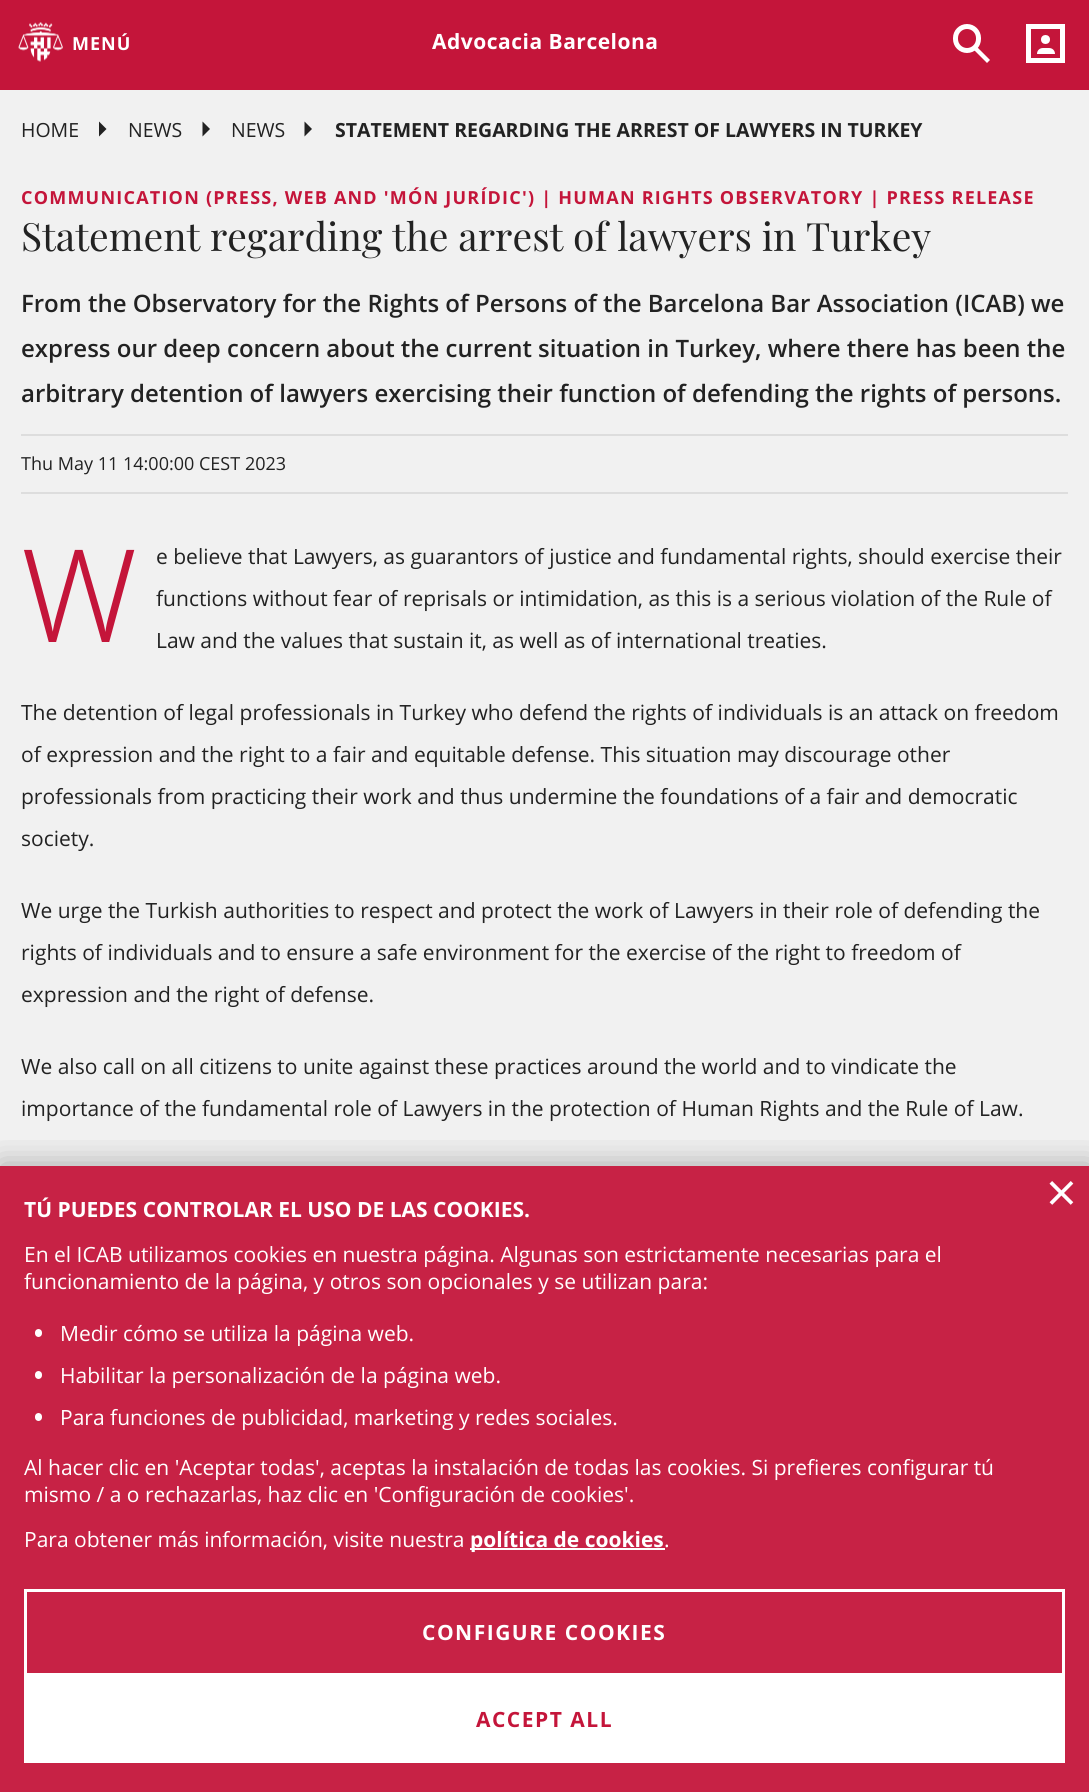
#include <cairo.h>
#include <math.h>
#include <stddef.h>

typedef struct { const char *family; double size; int italic, bold; unsigned color; } style_t;
static cairo_t *ctx;

static void ink(unsigned color) {
    cairo_set_source_rgb(ctx, (color >> 16) / 255.0, (color >> 8 & 255) / 255.0, (color & 255) / 255.0);
}

static void write(double x, double y, const char *s, const style_t *st) {
    cairo_select_font_face(ctx, st->family, st->italic ? CAIRO_FONT_SLANT_ITALIC : CAIRO_FONT_SLANT_NORMAL,
        st->bold ? CAIRO_FONT_WEIGHT_BOLD : CAIRO_FONT_WEIGHT_NORMAL);
    cairo_set_font_size(ctx, st->size);
    ink(st->color);
    cairo_move_to(ctx, x, y);
    cairo_show_text(ctx, s);
}

static void write_spaced(double x, double y, const char *s, double letter, double word) {
    cairo_move_to(ctx, x, y);
    while (*s) {
        char ch[5] = {0};
        int n = 0;
        do ch[n++] = *s++; while ((*s & 0xC0) == 0x80);
        cairo_show_text(ctx, ch);
        cairo_rel_move_to(ctx, letter + word * (*ch == ' '), 0);
    }
}

static void block(double x, double y, double w, double h, unsigned color) {
    ink(color);
    cairo_rectangle(ctx, x, y, w, h);
    cairo_fill(ctx);
}

static void round_path(double x, double y, double w, double h, double r) {
    cairo_new_sub_path(ctx);
    cairo_arc(ctx, x + w - r, y + h - r, r, 0, M_PI / 2);
    cairo_arc(ctx, x + r, y + h - r, r, M_PI / 2, M_PI);
    cairo_arc(ctx, x + r, y + r, r, M_PI, 1.5 * M_PI);
    cairo_arc(ctx, x + w - r, y + r, r, 1.5 * M_PI, 2 * M_PI);
    cairo_close_path(ctx);
}

static void blur_box(double x, double y, double w, double h, double r, double blur, double alpha) {
    cairo_push_group_with_content(ctx, CAIRO_CONTENT_ALPHA);
    cairo_set_operator(ctx, CAIRO_OPERATOR_SOURCE);
    for (int i = 15; i >= -15 && fmin(w, h) + blur * i / 3 > 0; i -= 2) {
        double e = blur * i / 6;
        cairo_set_source_rgba(ctx, 0, 0, 0, alpha * erfc((i - 1) / 8.5) / 2);
        round_path(x - e, y - e, w + 2 * e, h + 2 * e, fmax(0, fmin(r + e + blur * .6, fmin(w, h) / 2 + e)));
        cairo_fill(ctx);
    }
    cairo_pattern_t *soft = cairo_pop_group(ctx);
    cairo_mask(ctx, soft);
    cairo_pattern_destroy(soft);
}

static void paste(const char *path, double x, double y, double w, double h) {
    cairo_surface_t *image = cairo_image_surface_create_from_png(path);
    cairo_save(ctx);
    cairo_set_source_surface(ctx, image, x, y);
    cairo_rectangle(ctx, x, y, w, h);
    cairo_fill(ctx);
    cairo_restore(ctx);
    cairo_surface_destroy(image);
}

static const style_t s1 = {"Open Sans", 19.5, 0, 0, 0x222222};
static const style_t s2 = {"Open Sans", 19.5, 0, 1, 0x222222};
static const style_t s3 = {"Playfair Display", 39, 0, 0, 0x222222};
static const style_t s4 = {"Open Sans SemiBold", 24, 0, 0, 0x222222};
static const style_t s5 = {"Open Sans", 18, 0, 0, 0x222222};
static const style_t s6 = {"Noto Sans Light", 129, 0, 0, 0xc4153a};
static const style_t s7 = {"Open Sans", 21, 0, 0, 0x222222};
static const style_t s8 = {"Open Sans", 54, 0, 0, 0xffffff};
static const style_t s9 = {"Open Sans", 21, 0, 1, 0xffffff};
static const style_t s10 = {"Open Sans", 21, 0, 0, 0xffffff};

int main(void) {
    cairo_surface_t *surface = cairo_image_surface_create(CAIRO_FORMAT_RGB24, 1089, 1792);
    ctx = cairo_create(surface);
    cairo_font_options_t *options = cairo_font_options_create();
    cairo_font_options_set_hint_metrics(options, CAIRO_HINT_METRICS_OFF);
    cairo_font_options_set_hint_style(options, CAIRO_HINT_STYLE_NONE);
    cairo_set_font_options(ctx, options);
    cairo_set_miter_limit(ctx, 4);
    ink(0xc4153a);
    cairo_paint(ctx);
    paste("pic1.png", 18, 22, 45, 40);
    cairo_select_font_face(ctx, "Open Sans", CAIRO_FONT_SLANT_NORMAL, CAIRO_FONT_WEIGHT_BOLD);
    cairo_set_font_size(ctx, 18);
    ink(0xffffff);
    write_spaced(72, 50, "MENÚ", 1, 0);
    cairo_set_font_size(ctx, 21);
    write_spaced(432, 49, "Advocacia Barcelona", 0.5, 0);
    round_path(955.5, 26.5, 23, 24, 11.5);
    cairo_set_line_width(ctx, 5);
    cairo_stroke(ctx);
    cairo_new_path(ctx);
    cairo_move_to(ctx, 976.5, 46.5);
    cairo_line_to(ctx, 990, 60);
    cairo_line_to(ctx, 987, 63);
    cairo_line_to(ctx, 973.5, 49.5);
    cairo_close_path(ctx);
    cairo_fill(ctx);
    cairo_rectangle(ctx, 1028.5, 26.5, 34, 34);
    cairo_stroke(ctx);
    cairo_arc(ctx, 1045.5, 39.5, 4.5, 0, 2 * M_PI);
    cairo_fill(ctx);
    cairo_new_path(ctx);
    cairo_move_to(ctx, 1043, 48);
    cairo_line_to(ctx, 1049, 48);
    cairo_curve_to(ctx, 1052.5, 48, 1055, 50.5, 1055, 54);
    cairo_line_to(ctx, 1037, 54);
    cairo_curve_to(ctx, 1037, 50.5, 1039.5, 48, 1043, 48);
    cairo_close_path(ctx);
    cairo_fill(ctx);
    block(0, 90, 1089, 1076, 0xf1f1f1);
    block(0, 1166, 1089, 626, 0xc72245);
    write(21, 137, "HOME", &s1);
    cairo_new_path(ctx);
    cairo_move_to(ctx, 99, 136.5);
    cairo_line_to(ctx, 99, 121.5);
    cairo_line_to(ctx, 106.5, 129);
    cairo_close_path(ctx);
    cairo_fill(ctx);
    write(128, 137, "NEWS", &s1);
    cairo_new_path(ctx);
    cairo_move_to(ctx, 202.5, 136.5);
    cairo_line_to(ctx, 202.5, 121.5);
    cairo_line_to(ctx, 210, 129);
    cairo_close_path(ctx);
    cairo_fill(ctx);
    write(231, 137, "NEWS", &s1);
    cairo_new_path(ctx);
    cairo_move_to(ctx, 304.5, 136.5);
    cairo_line_to(ctx, 304.5, 121.5);
    cairo_line_to(ctx, 312, 129);
    cairo_close_path(ctx);
    cairo_fill(ctx);
    write(335, 137, "STATEMENT REGARDING THE ARREST OF LAWYERS IN TURKEY", &s2);
    cairo_set_font_size(ctx, 18);
    ink(0xc4153a);
    write_spaced(21, 204, "COMMUNICATION (PRESS, WEB AND 'MÓN JURÍDIC') | HUMAN RIGHTS OBSERVATORY | PRESS RELEASE", 1.22, 0);
    write(21, 251, "Statement regarding the arrest of lawyers in Turkey", &s3);
    write(21, 312, "From the Observatory for the Rights of Persons of the Barcelona Bar Association (ICAB) we", &s4);
    write(21, 357, "express our deep concern about the current situation in Turkey, where there has been the", &s4);
    write(21, 402, "arbitrary detention of lawyers exercising their function of defending the rights of persons.", &s4);
    block(21, 434, 1047, 2, 0xdddddd);
    block(21, 492, 1047, 2, 0xdddddd);
    write(21, 470, "Thu May 11 14:00:00 CEST 2023", &s5);
    write(21, 642, "W", &s6);
    write(156, 564, "e believe that Lawyers, as guarantors of justice and fundamental rights, should exercise their", &s7);
    write(156, 606, "functions without fear of reprisals or intimidation, as this is a serious violation of the Rule of", &s7);
    write(156, 648, "Law and the values that sustain it, as well as of international treaties.", &s7);
    write(21, 720, "The detention of legal professionals in Turkey who defend the rights of individuals is an attack on freedom", &s7);
    write(21, 762, "of expression and the right to a fair and equitable defense. This situation may discourage other", &s7);
    write(21, 804, "professionals from practicing their work and thus undermine the foundations of a fair and democratic", &s7);
    write(21, 846, "society.", &s7);
    write(21, 918, "We urge the Turkish authorities to respect and protect the work of Lawyers in their role of defending the", &s7);
    write(21, 960, "rights of individuals and to ensure a safe environment for the exercise of the right to freedom of", &s7);
    write(21, 1002, "expression and the right of defense.", &s7);
    write(21, 1074, "We also call on all citizens to unite against these practices around the world and to vindicate the", &s7);
    write(21, 1116, "importance of the fundamental role of Lawyers in the protection of Human Rights and the Rule of Law.", &s7);
    cairo_save(ctx);
    cairo_rectangle(ctx, 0, 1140, 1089, 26);
    cairo_clip(ctx);
    ink(0x000000);
    blur_box(0, 1164, 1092, 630, 0, 16, 0.3);
    cairo_restore(ctx);
    write(1046, 1212, "×", &s8);
    write(24, 1217, "TÚ PUEDES CONTROLAR EL USO DE LAS COOKIES.", &s9);
    write(24, 1262, "En el ICAB utilizamos cookies en nuestra página. Algunas son estrictamente necesarias para el", &s10);
    write(24, 1289, "funcionamiento de la página, y otros son opcionales y se utilizan para:", &s10);
    round_path(35, 1329, 7, 8, 3.5);
    cairo_fill(ctx);
    write(60, 1341, "Medir cómo se utiliza la página web.", &s10);
    round_path(35, 1371, 7, 8, 3.5);
    cairo_fill(ctx);
    write(60, 1383, "Habilitar la personalización de la página web.", &s10);
    round_path(35, 1413, 7, 8, 3.5);
    cairo_fill(ctx);
    write(60, 1425, "Para funciones de publicidad, marketing y redes sociales.", &s10);
    write(24, 1475, "Al hacer clic en 'Aceptar todas', aceptas la instalación de todas las cookies. Si prefieres configurar tú", &s10);
    write(24, 1502, "mismo / a o rechazarlas, haz clic en 'Configuración de cookies'.", &s10);
    write(24, 1547, "Para obtener más información, visite nuestra", &s10);
    block(470, 1548, 195, 2, 0xffffff);
    write(470, 1547, "política de cookies", &s9);
    write(664, 1547, ".", &s10);
    cairo_rectangle(ctx, 25.5, 1590.5, 1038, 84);
    cairo_set_line_width(ctx, 3);
    cairo_stroke(ctx);
    cairo_select_font_face(ctx, "Open Sans", CAIRO_FONT_SLANT_NORMAL, CAIRO_FONT_WEIGHT_BOLD);
    write_spaced(422, 1640, "CONFIGURE COOKIES", 1.5, 0);
    block(24, 1676, 1041, 87, 0xffffff);
    ink(0xc4153a);
    write_spaced(476, 1727, "ACCEPT ALL", 1.5, 0);
    cairo_surface_write_to_png(surface, "screenshot.png");
    cairo_font_options_destroy(options);
    cairo_destroy(ctx);
    cairo_surface_destroy(surface);
    return 0;
}
